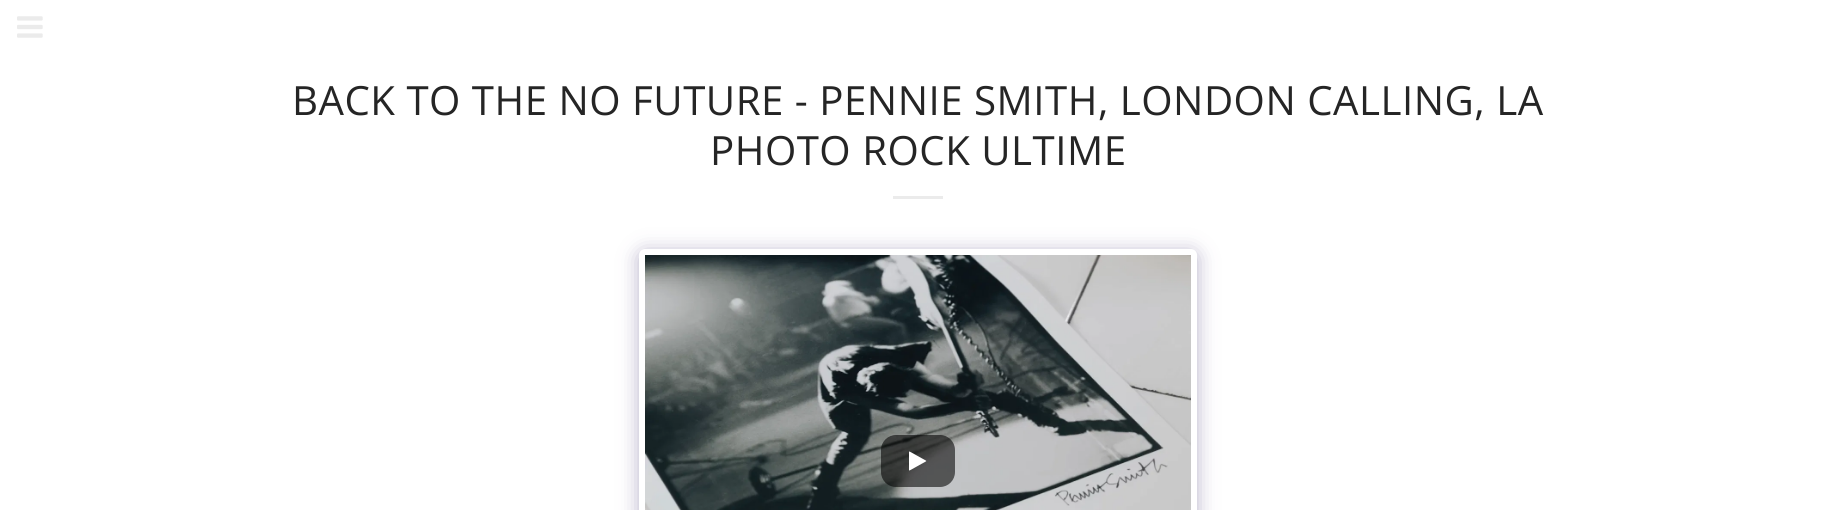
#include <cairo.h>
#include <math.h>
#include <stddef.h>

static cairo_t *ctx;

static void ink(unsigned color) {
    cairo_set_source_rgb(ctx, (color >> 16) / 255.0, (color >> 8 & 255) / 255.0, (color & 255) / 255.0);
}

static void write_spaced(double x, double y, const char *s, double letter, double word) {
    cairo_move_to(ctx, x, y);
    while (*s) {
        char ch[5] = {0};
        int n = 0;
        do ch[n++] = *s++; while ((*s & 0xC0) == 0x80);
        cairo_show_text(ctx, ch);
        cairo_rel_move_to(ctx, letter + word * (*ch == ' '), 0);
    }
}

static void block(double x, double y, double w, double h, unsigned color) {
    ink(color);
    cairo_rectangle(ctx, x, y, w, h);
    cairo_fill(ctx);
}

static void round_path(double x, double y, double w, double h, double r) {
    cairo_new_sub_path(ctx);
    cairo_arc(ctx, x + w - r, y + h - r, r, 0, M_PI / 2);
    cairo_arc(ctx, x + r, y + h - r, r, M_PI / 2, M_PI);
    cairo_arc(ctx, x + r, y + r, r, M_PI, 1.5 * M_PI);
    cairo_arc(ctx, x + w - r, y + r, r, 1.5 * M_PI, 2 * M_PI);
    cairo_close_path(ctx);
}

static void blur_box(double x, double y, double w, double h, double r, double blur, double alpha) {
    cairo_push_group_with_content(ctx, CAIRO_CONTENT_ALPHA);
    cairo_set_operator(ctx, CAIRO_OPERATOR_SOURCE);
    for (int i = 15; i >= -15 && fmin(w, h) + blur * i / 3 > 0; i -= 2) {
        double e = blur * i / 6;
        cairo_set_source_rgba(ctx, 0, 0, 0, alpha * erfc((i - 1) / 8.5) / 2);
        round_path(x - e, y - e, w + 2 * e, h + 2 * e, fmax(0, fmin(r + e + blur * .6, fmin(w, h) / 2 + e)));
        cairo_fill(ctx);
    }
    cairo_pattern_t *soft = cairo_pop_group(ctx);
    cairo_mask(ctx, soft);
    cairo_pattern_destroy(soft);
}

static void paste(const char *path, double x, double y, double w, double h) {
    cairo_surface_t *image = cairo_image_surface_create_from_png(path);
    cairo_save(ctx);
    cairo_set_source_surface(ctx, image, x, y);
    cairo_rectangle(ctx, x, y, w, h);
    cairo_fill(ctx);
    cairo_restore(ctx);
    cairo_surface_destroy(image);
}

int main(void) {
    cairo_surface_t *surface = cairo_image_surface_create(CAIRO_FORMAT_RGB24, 1836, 510);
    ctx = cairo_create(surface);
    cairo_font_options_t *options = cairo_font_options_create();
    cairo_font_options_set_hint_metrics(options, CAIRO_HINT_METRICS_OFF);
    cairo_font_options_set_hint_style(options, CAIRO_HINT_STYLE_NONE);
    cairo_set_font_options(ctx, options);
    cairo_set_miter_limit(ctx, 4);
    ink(0xffffff);
    cairo_paint(ctx);
    paste("pic1.png", 17, 16, 26, 22);
    cairo_select_font_face(ctx, "Open Sans", CAIRO_FONT_SLANT_NORMAL, CAIRO_FONT_WEIGHT_NORMAL);
    cairo_set_font_size(ctx, 40.25);
    ink(0x252525);
    write_spaced(292, 115, "BACK TO THE NO FUTURE - PENNIE SMITH, LONDON CALLING, LA", 0.5, 0);
    write_spaced(710, 165, "PHOTO ROCK ULTIME", 0.5, 0);
    block(893, 196, 50, 3, 0xebebeb);
    ink(0x4d3f7a);
    blur_box(639, 252, 558, 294, 6, 10, 0.4);
    ink(0xffffff);
    round_path(639, 249, 558, 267, 6);
    cairo_fill(ctx);
    paste("pic2.png", 645, 255, 546, 255);
    cairo_set_source_rgba(ctx, 0, 0, 0, 0.57);
    round_path(881, 435, 74, 52, 15);
    cairo_fill(ctx);
    paste("pic3.png", 909, 451, 18, 20);
    cairo_surface_write_to_png(surface, "screenshot.png");
    cairo_font_options_destroy(options);
    cairo_destroy(ctx);
    cairo_surface_destroy(surface);
    return 0;
}
